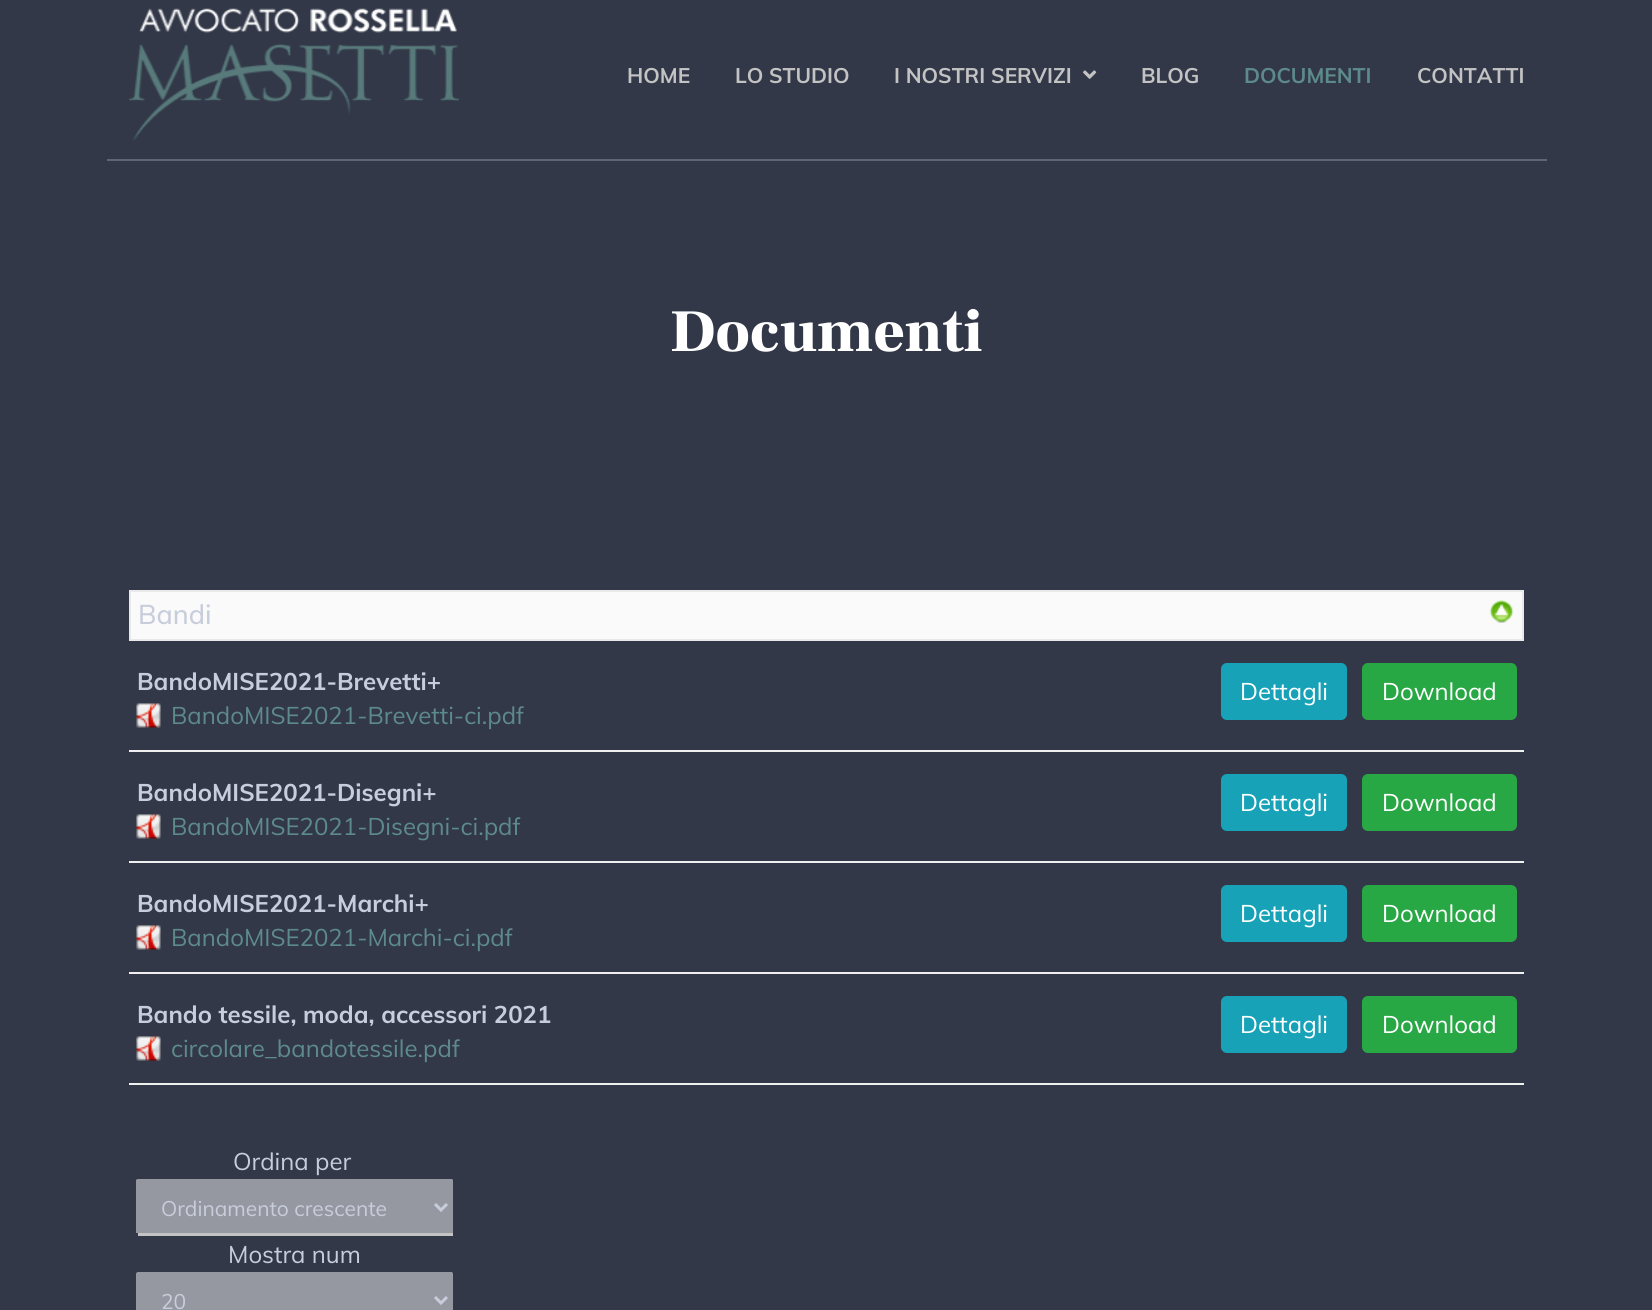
#include <cairo.h>
#include <math.h>
#include <stddef.h>

typedef struct { const char *family; double size; int italic, bold; unsigned color; } style_t;
static cairo_t *ctx;

static void ink(unsigned color) {
    cairo_set_source_rgb(ctx, (color >> 16) / 255.0, (color >> 8 & 255) / 255.0, (color & 255) / 255.0);
}

static void write(double x, double y, const char *s, const style_t *st) {
    cairo_select_font_face(ctx, st->family, st->italic ? CAIRO_FONT_SLANT_ITALIC : CAIRO_FONT_SLANT_NORMAL,
        st->bold ? CAIRO_FONT_WEIGHT_BOLD : CAIRO_FONT_WEIGHT_NORMAL);
    cairo_set_font_size(ctx, st->size);
    ink(st->color);
    cairo_move_to(ctx, x, y);
    cairo_show_text(ctx, s);
}

static void block(double x, double y, double w, double h, unsigned color) {
    ink(color);
    cairo_rectangle(ctx, x, y, w, h);
    cairo_fill(ctx);
}

static void round_path(double x, double y, double w, double h, double r) {
    cairo_new_sub_path(ctx);
    cairo_arc(ctx, x + w - r, y + h - r, r, 0, M_PI / 2);
    cairo_arc(ctx, x + r, y + h - r, r, M_PI / 2, M_PI);
    cairo_arc(ctx, x + r, y + r, r, M_PI, 1.5 * M_PI);
    cairo_arc(ctx, x + w - r, y + r, r, 1.5 * M_PI, 2 * M_PI);
    cairo_close_path(ctx);
}

static void paste(const char *path, double x, double y, double w, double h) {
    cairo_surface_t *image = cairo_image_surface_create_from_png(path);
    cairo_save(ctx);
    cairo_set_source_surface(ctx, image, x, y);
    cairo_rectangle(ctx, x, y, w, h);
    cairo_fill(ctx);
    cairo_restore(ctx);
    cairo_surface_destroy(image);
}

static const style_t s1 = {"Muli", 21, 0, 1, 0xc3c3c3};
static const style_t s2 = {"Muli", 21, 0, 1, 0x5d8a8a};
static const style_t s3 = {"Frank Ruhl Libre Black", 60, 0, 0, 0xffffff};
static const style_t s4 = {"Muli Medium", 27, 0, 0, 0xc8cddc};
static const style_t s5 = {"Muli", 24, 0, 1, 0xc8cddc};
static const style_t s6 = {"Muli", 24, 0, 0, 0x5d8a8a};
static const style_t s7 = {"Muli", 24, 0, 0, 0xffffff};
static const style_t s8 = {"Muli", 24, 0, 0, 0xc8cddc};
static const style_t s9 = {"Muli", 21, 0, 0, 0xc8cddc};

int main(void) {
    cairo_surface_t *surface = cairo_image_surface_create(CAIRO_FORMAT_RGB24, 1652, 1310);
    ctx = cairo_create(surface);
    cairo_font_options_t *options = cairo_font_options_create();
    cairo_font_options_set_hint_metrics(options, CAIRO_HINT_METRICS_OFF);
    cairo_font_options_set_hint_style(options, CAIRO_HINT_STYLE_NONE);
    cairo_set_font_options(ctx, options);
    cairo_set_miter_limit(ctx, 4);
    ink(0x323848);
    cairo_paint(ctx);
    block(107, 159, 1440, 2, 0x5f6574);
    paste("pic1.png", 129, 8, 330, 133);
    write(627, 83, "HOME", &s1);
    write(735, 83, "LO STUDIO", &s1);
    write(894, 83, "I NOSTRI SERVIZI", &s1);
    paste("pic2.png", 1083, 70, 14, 9);
    write(1141, 83, "BLOG", &s1);
    write(1244, 83, "DOCUMENTI", &s2);
    write(1417, 83, "CONTATTI", &s1);
    write(670, 351, "Documenti", &s3);
    ink(0xfafafa);
    cairo_rectangle(ctx, 130, 591, 1393, 49);
    cairo_fill_preserve(ctx);
    ink(0xe9e9e9);
    cairo_stroke(ctx);
    write(138, 624, "Bandi", &s4);
    paste("pic3.png", 1489, 600, 25, 23);
    block(129, 750, 1395, 2, 0xf0f0f0);
    write(137, 690, "BandoMISE2021-Brevetti+", &s5);
    paste("pic4.png", 136, 703, 25, 25);
    write(171, 724, "BandoMISE2021-Brevetti-ci.pdf", &s6);
    ink(0x17a2b8);
    round_path(1222, 664, 124, 55, 5);
    cairo_fill_preserve(ctx);
    cairo_stroke(ctx);
    write(1240, 700, "Dettagli", &s7);
    ink(0x28a745);
    round_path(1363, 664, 153, 55, 5);
    cairo_fill_preserve(ctx);
    cairo_stroke(ctx);
    write(1382, 700, "Download", &s7);
    block(129, 861, 1395, 2, 0xf0f0f0);
    write(137, 801, "BandoMISE2021-Disegni+", &s5);
    paste("pic4.png", 136, 814, 25, 25);
    write(171, 835, "BandoMISE2021-Disegni-ci.pdf", &s6);
    ink(0x17a2b8);
    round_path(1222, 775, 124, 55, 5);
    cairo_fill_preserve(ctx);
    cairo_stroke(ctx);
    write(1240, 811, "Dettagli", &s7);
    ink(0x28a745);
    round_path(1363, 775, 153, 55, 5);
    cairo_fill_preserve(ctx);
    cairo_stroke(ctx);
    write(1382, 811, "Download", &s7);
    block(129, 972, 1395, 2, 0xf0f0f0);
    write(137, 912, "BandoMISE2021-Marchi+", &s5);
    paste("pic4.png", 136, 925, 25, 25);
    write(171, 946, "BandoMISE2021-Marchi-ci.pdf", &s6);
    ink(0x17a2b8);
    round_path(1222, 886, 124, 55, 5);
    cairo_fill_preserve(ctx);
    cairo_stroke(ctx);
    write(1240, 922, "Dettagli", &s7);
    ink(0x28a745);
    round_path(1363, 886, 153, 55, 5);
    cairo_fill_preserve(ctx);
    cairo_stroke(ctx);
    write(1382, 922, "Download", &s7);
    block(129, 1083, 1395, 2, 0xf0f0f0);
    write(137, 1023, "Bando tessile, moda, accessori 2021", &s5);
    paste("pic4.png", 136, 1036, 25, 25);
    write(171, 1057, "circolare_bandotessile.pdf", &s6);
    ink(0x17a2b8);
    round_path(1222, 997, 124, 55, 5);
    cairo_fill_preserve(ctx);
    cairo_stroke(ctx);
    write(1240, 1033, "Dettagli", &s7);
    ink(0x28a745);
    round_path(1363, 997, 153, 55, 5);
    cairo_fill_preserve(ctx);
    cairo_stroke(ctx);
    write(1382, 1033, "Download", &s7);
    write(233, 1170, "Ordina per", &s8);
    ink(0x9598a0);
    cairo_new_path(ctx);
    cairo_move_to(ctx, 138, 1179);
    cairo_line_to(ctx, 452, 1179);
    cairo_curve_to(ctx, 452, 1179, 453, 1180, 453, 1180);
    cairo_line_to(ctx, 453, 1233);
    cairo_line_to(ctx, 136, 1233);
    cairo_line_to(ctx, 136, 1180);
    cairo_curve_to(ctx, 136, 1180, 137, 1179, 138, 1179);
    cairo_close_path(ctx);
    cairo_fill(ctx);
    block(138, 1233, 315, 3, 0xc3c3c3);
    cairo_new_path(ctx);
    cairo_move_to(ctx, 435, 1204);
    cairo_line_to(ctx, 441, 1210);
    cairo_line_to(ctx, 447, 1204);
    ink(0xc8cddc);
    cairo_set_line_width(ctx, 3);
    cairo_stroke(ctx);
    write(161, 1216, "Ordinamento crescente", &s9);
    write(228, 1263, "Mostra num", &s8);
    ink(0x9598a0);
    cairo_new_path(ctx);
    cairo_move_to(ctx, 138, 1272);
    cairo_line_to(ctx, 452, 1272);
    cairo_curve_to(ctx, 452, 1272, 453, 1273, 453, 1274);
    cairo_line_to(ctx, 453, 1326);
    cairo_line_to(ctx, 136, 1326);
    cairo_line_to(ctx, 136, 1274);
    cairo_curve_to(ctx, 136, 1273, 137, 1272, 138, 1272);
    cairo_close_path(ctx);
    cairo_fill(ctx);
    cairo_new_path(ctx);
    cairo_move_to(ctx, 435, 1297);
    cairo_line_to(ctx, 441, 1303);
    cairo_line_to(ctx, 447, 1297);
    ink(0xc8cddc);
    cairo_stroke(ctx);
    write(161, 1309, "20", &s9);
    cairo_surface_write_to_png(surface, "screenshot.png");
    cairo_font_options_destroy(options);
    cairo_destroy(ctx);
    cairo_surface_destroy(surface);
    return 0;
}
